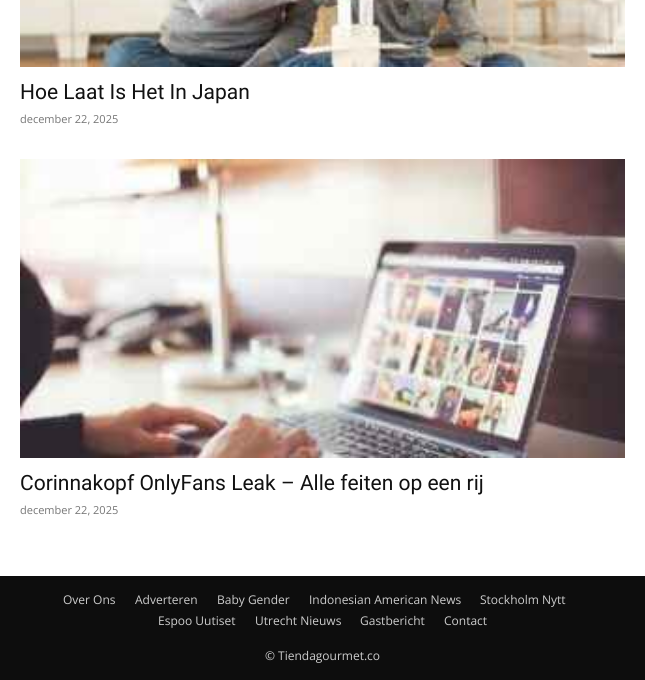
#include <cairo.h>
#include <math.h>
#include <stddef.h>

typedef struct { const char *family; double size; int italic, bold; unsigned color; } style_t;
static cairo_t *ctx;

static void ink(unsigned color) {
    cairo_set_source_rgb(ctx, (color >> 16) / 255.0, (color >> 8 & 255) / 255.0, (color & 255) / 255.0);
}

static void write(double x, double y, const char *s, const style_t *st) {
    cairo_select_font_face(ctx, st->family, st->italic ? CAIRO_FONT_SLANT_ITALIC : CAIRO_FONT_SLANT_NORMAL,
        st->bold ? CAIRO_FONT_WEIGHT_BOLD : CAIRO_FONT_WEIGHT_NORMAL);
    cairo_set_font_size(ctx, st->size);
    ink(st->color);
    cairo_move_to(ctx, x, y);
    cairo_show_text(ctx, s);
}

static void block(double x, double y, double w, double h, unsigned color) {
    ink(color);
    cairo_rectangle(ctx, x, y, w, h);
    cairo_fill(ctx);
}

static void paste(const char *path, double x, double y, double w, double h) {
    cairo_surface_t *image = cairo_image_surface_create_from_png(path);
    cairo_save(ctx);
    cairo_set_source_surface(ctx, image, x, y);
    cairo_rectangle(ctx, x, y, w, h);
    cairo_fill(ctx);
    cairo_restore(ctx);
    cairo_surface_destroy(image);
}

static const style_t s1 = {"Roboto", 21, 0, 0, 0x111111};
static const style_t s2 = {"Open Sans", 11, 0, 0, 0x767676};
static const style_t s3 = {"Open Sans", 12, 0, 0, 0xcccccc};

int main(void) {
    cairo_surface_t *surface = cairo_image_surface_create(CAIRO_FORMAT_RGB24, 645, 680);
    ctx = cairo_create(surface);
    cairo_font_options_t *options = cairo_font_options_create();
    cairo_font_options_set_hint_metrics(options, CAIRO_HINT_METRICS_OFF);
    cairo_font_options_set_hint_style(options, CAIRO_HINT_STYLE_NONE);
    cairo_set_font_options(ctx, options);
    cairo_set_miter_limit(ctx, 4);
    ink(0xffffff);
    cairo_paint(ctx);
    paste("pic1.png", 20, 0, 605, 67);
    write(20, 99, "Hoe Laat Is Het In Japan", &s1);
    write(20, 123, "december 22, 2025", &s2);
    paste("pic2.png", 20, 159, 605, 299);
    write(20, 490, "Corinnakopf OnlyFans Leak – Alle feiten op een rij", &s1);
    write(20, 514, "december 22, 2025", &s2);
    block(0, 576, 645, 104, 0x0d0d0d);
    write(63, 604, "Over Ons", &s3);
    write(135, 604, "Adverteren", &s3);
    write(217, 604, "Baby Gender", &s3);
    write(309, 604, "Indonesian American News", &s3);
    write(480, 604, "Stockholm Nytt", &s3);
    write(158, 625, "Espoo Uutiset", &s3);
    write(255, 625, "Utrecht Nieuws", &s3);
    write(360, 625, "Gastbericht", &s3);
    write(444, 625, "Contact", &s3);
    write(265, 660, "© Tiendagourmet.co", &s3);
    cairo_surface_write_to_png(surface, "screenshot.png");
    cairo_font_options_destroy(options);
    cairo_destroy(ctx);
    cairo_surface_destroy(surface);
    return 0;
}
